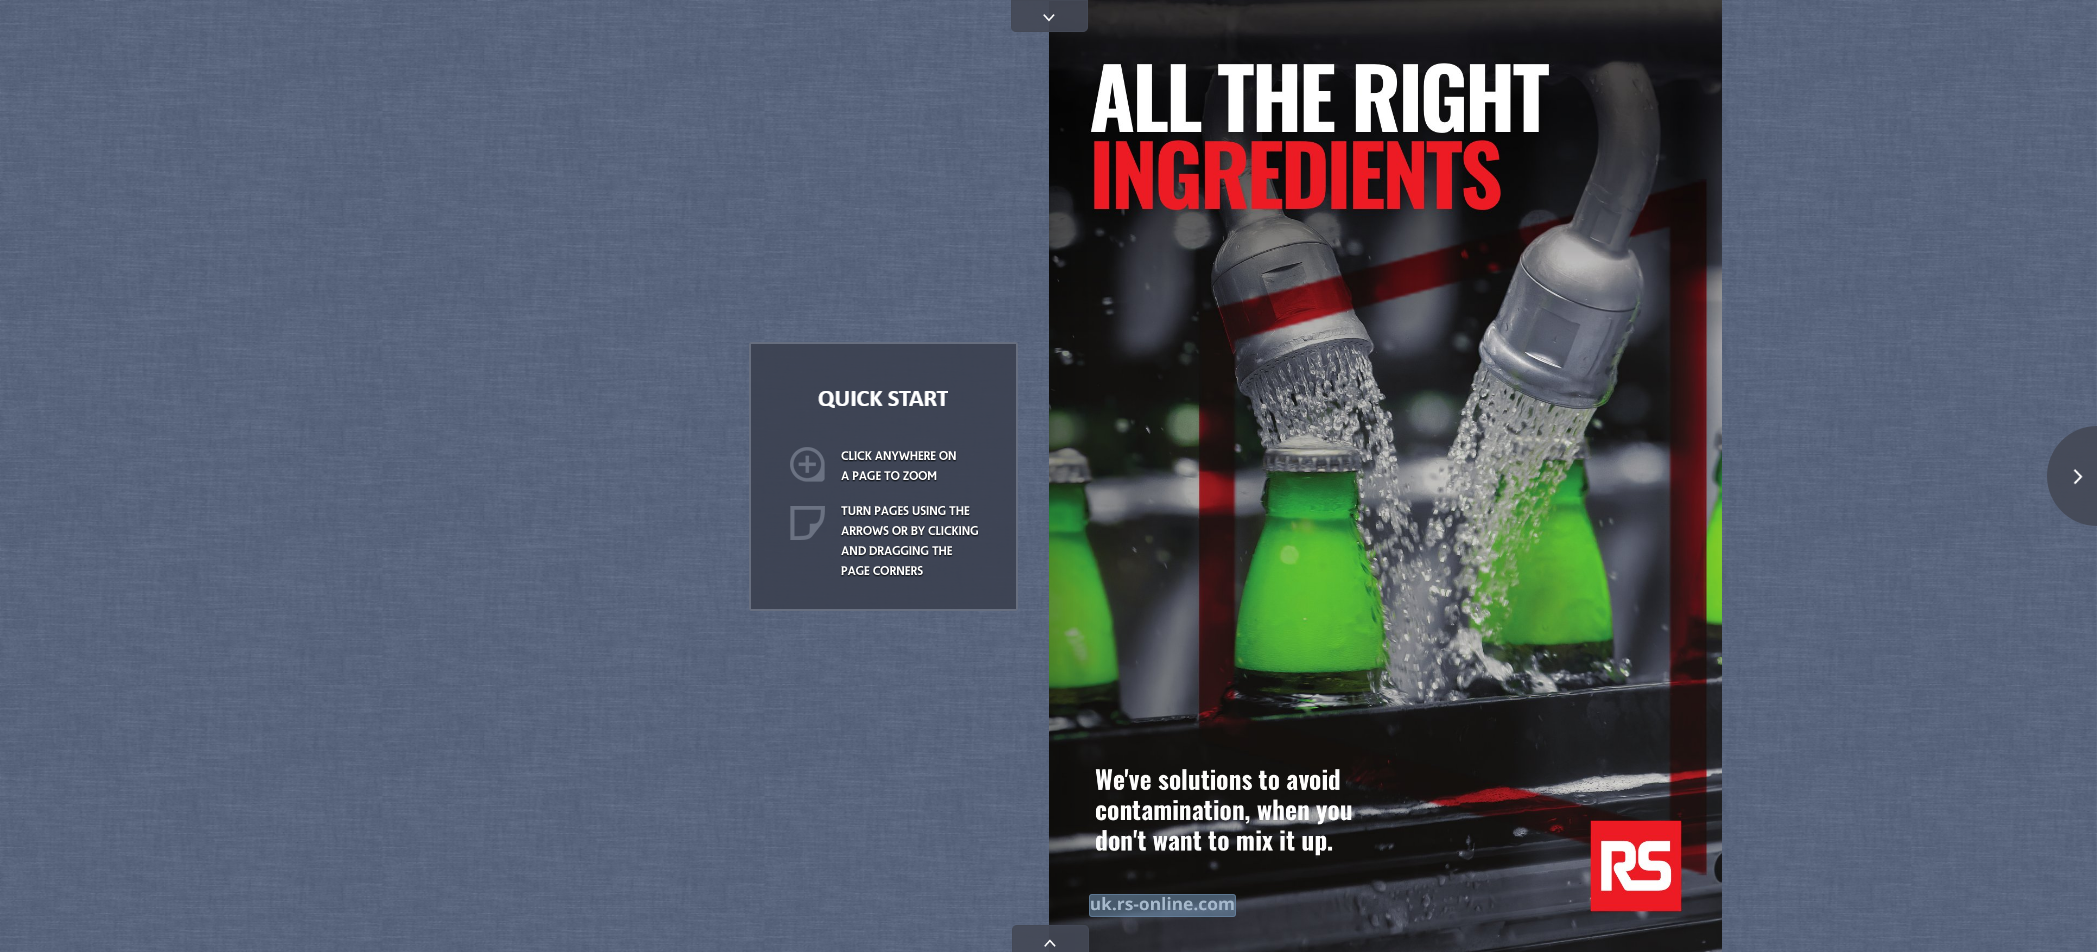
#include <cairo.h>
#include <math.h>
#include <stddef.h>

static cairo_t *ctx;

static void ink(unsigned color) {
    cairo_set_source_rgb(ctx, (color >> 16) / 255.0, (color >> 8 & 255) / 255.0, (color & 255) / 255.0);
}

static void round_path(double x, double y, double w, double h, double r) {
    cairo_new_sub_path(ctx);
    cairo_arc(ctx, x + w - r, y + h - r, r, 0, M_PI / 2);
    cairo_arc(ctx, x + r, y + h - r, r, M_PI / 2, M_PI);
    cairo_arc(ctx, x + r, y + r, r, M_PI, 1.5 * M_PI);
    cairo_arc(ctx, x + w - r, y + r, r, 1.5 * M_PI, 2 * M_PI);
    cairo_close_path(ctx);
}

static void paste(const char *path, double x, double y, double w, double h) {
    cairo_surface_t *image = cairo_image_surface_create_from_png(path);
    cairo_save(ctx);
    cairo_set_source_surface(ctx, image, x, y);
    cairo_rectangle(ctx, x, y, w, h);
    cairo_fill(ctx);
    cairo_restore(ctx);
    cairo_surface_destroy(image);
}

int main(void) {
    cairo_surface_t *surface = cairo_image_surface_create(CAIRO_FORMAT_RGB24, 2097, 952);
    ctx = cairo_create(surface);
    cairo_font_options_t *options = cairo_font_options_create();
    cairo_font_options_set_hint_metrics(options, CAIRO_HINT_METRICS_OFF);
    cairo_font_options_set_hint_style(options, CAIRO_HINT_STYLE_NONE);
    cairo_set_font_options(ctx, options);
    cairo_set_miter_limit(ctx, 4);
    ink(0xffffff);
    cairo_paint(ctx);
    paste("pic1.png", 0, 0, 2097, 952);
    paste("pic4.png", 1049, 0, 673, 952);
    cairo_set_source_rgba(ctx, 0.267, 0.286, 0.337, 0.9);
    cairo_new_path(ctx);
    cairo_move_to(ctx, 1011.5, 0.5);
    cairo_line_to(ctx, 1087.5, 0.5);
    cairo_line_to(ctx, 1087.5, 27);
    cairo_curve_to(ctx, 1087.5, 29.5, 1085.5, 31.5, 1083, 31.5);
    cairo_line_to(ctx, 1016, 31.5);
    cairo_curve_to(ctx, 1013.5, 31.5, 1011.5, 29.5, 1011.5, 27);
    cairo_close_path(ctx);
    cairo_fill_preserve(ctx);
    ink(0x444956);
    cairo_set_line_width(ctx, 1);
    cairo_stroke(ctx);
    paste("pic2.png", 1043, 14, 12, 8);
    paste("pic3.png", 749, 342, 269, 269);
    cairo_set_source_rgba(ctx, 0.427, 0.553, 0.671, 0.6);
    round_path(1089, 894, 147, 23, 3);
    cairo_fill(ctx);
    round_path(1089.5, 894.5, 146, 22, 2.5);
    cairo_stroke(ctx);
    cairo_set_source_rgba(ctx, 0.267, 0.286, 0.337, 0.9);
    cairo_arc(ctx, 2097, 476, 50, 0, 2 * M_PI);
    cairo_fill(ctx);
    paste("pic5.png", 2073, 469, 10, 16);
    cairo_new_path(ctx);
    cairo_move_to(ctx, 1017, 925.5);
    cairo_line_to(ctx, 1084, 925.5);
    cairo_curve_to(ctx, 1086.5, 925.5, 1088.5, 927.5, 1088.5, 930);
    cairo_line_to(ctx, 1088.5, 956.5);
    cairo_line_to(ctx, 1012.5, 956.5);
    cairo_line_to(ctx, 1012.5, 930);
    cairo_curve_to(ctx, 1012.5, 927.5, 1014.5, 925.5, 1017, 925.5);
    cairo_close_path(ctx);
    cairo_fill_preserve(ctx);
    ink(0x444956);
    cairo_stroke(ctx);
    paste("pic6.png", 1044, 939, 12, 8);
    cairo_surface_write_to_png(surface, "screenshot.png");
    cairo_font_options_destroy(options);
    cairo_destroy(ctx);
    cairo_surface_destroy(surface);
    return 0;
}
